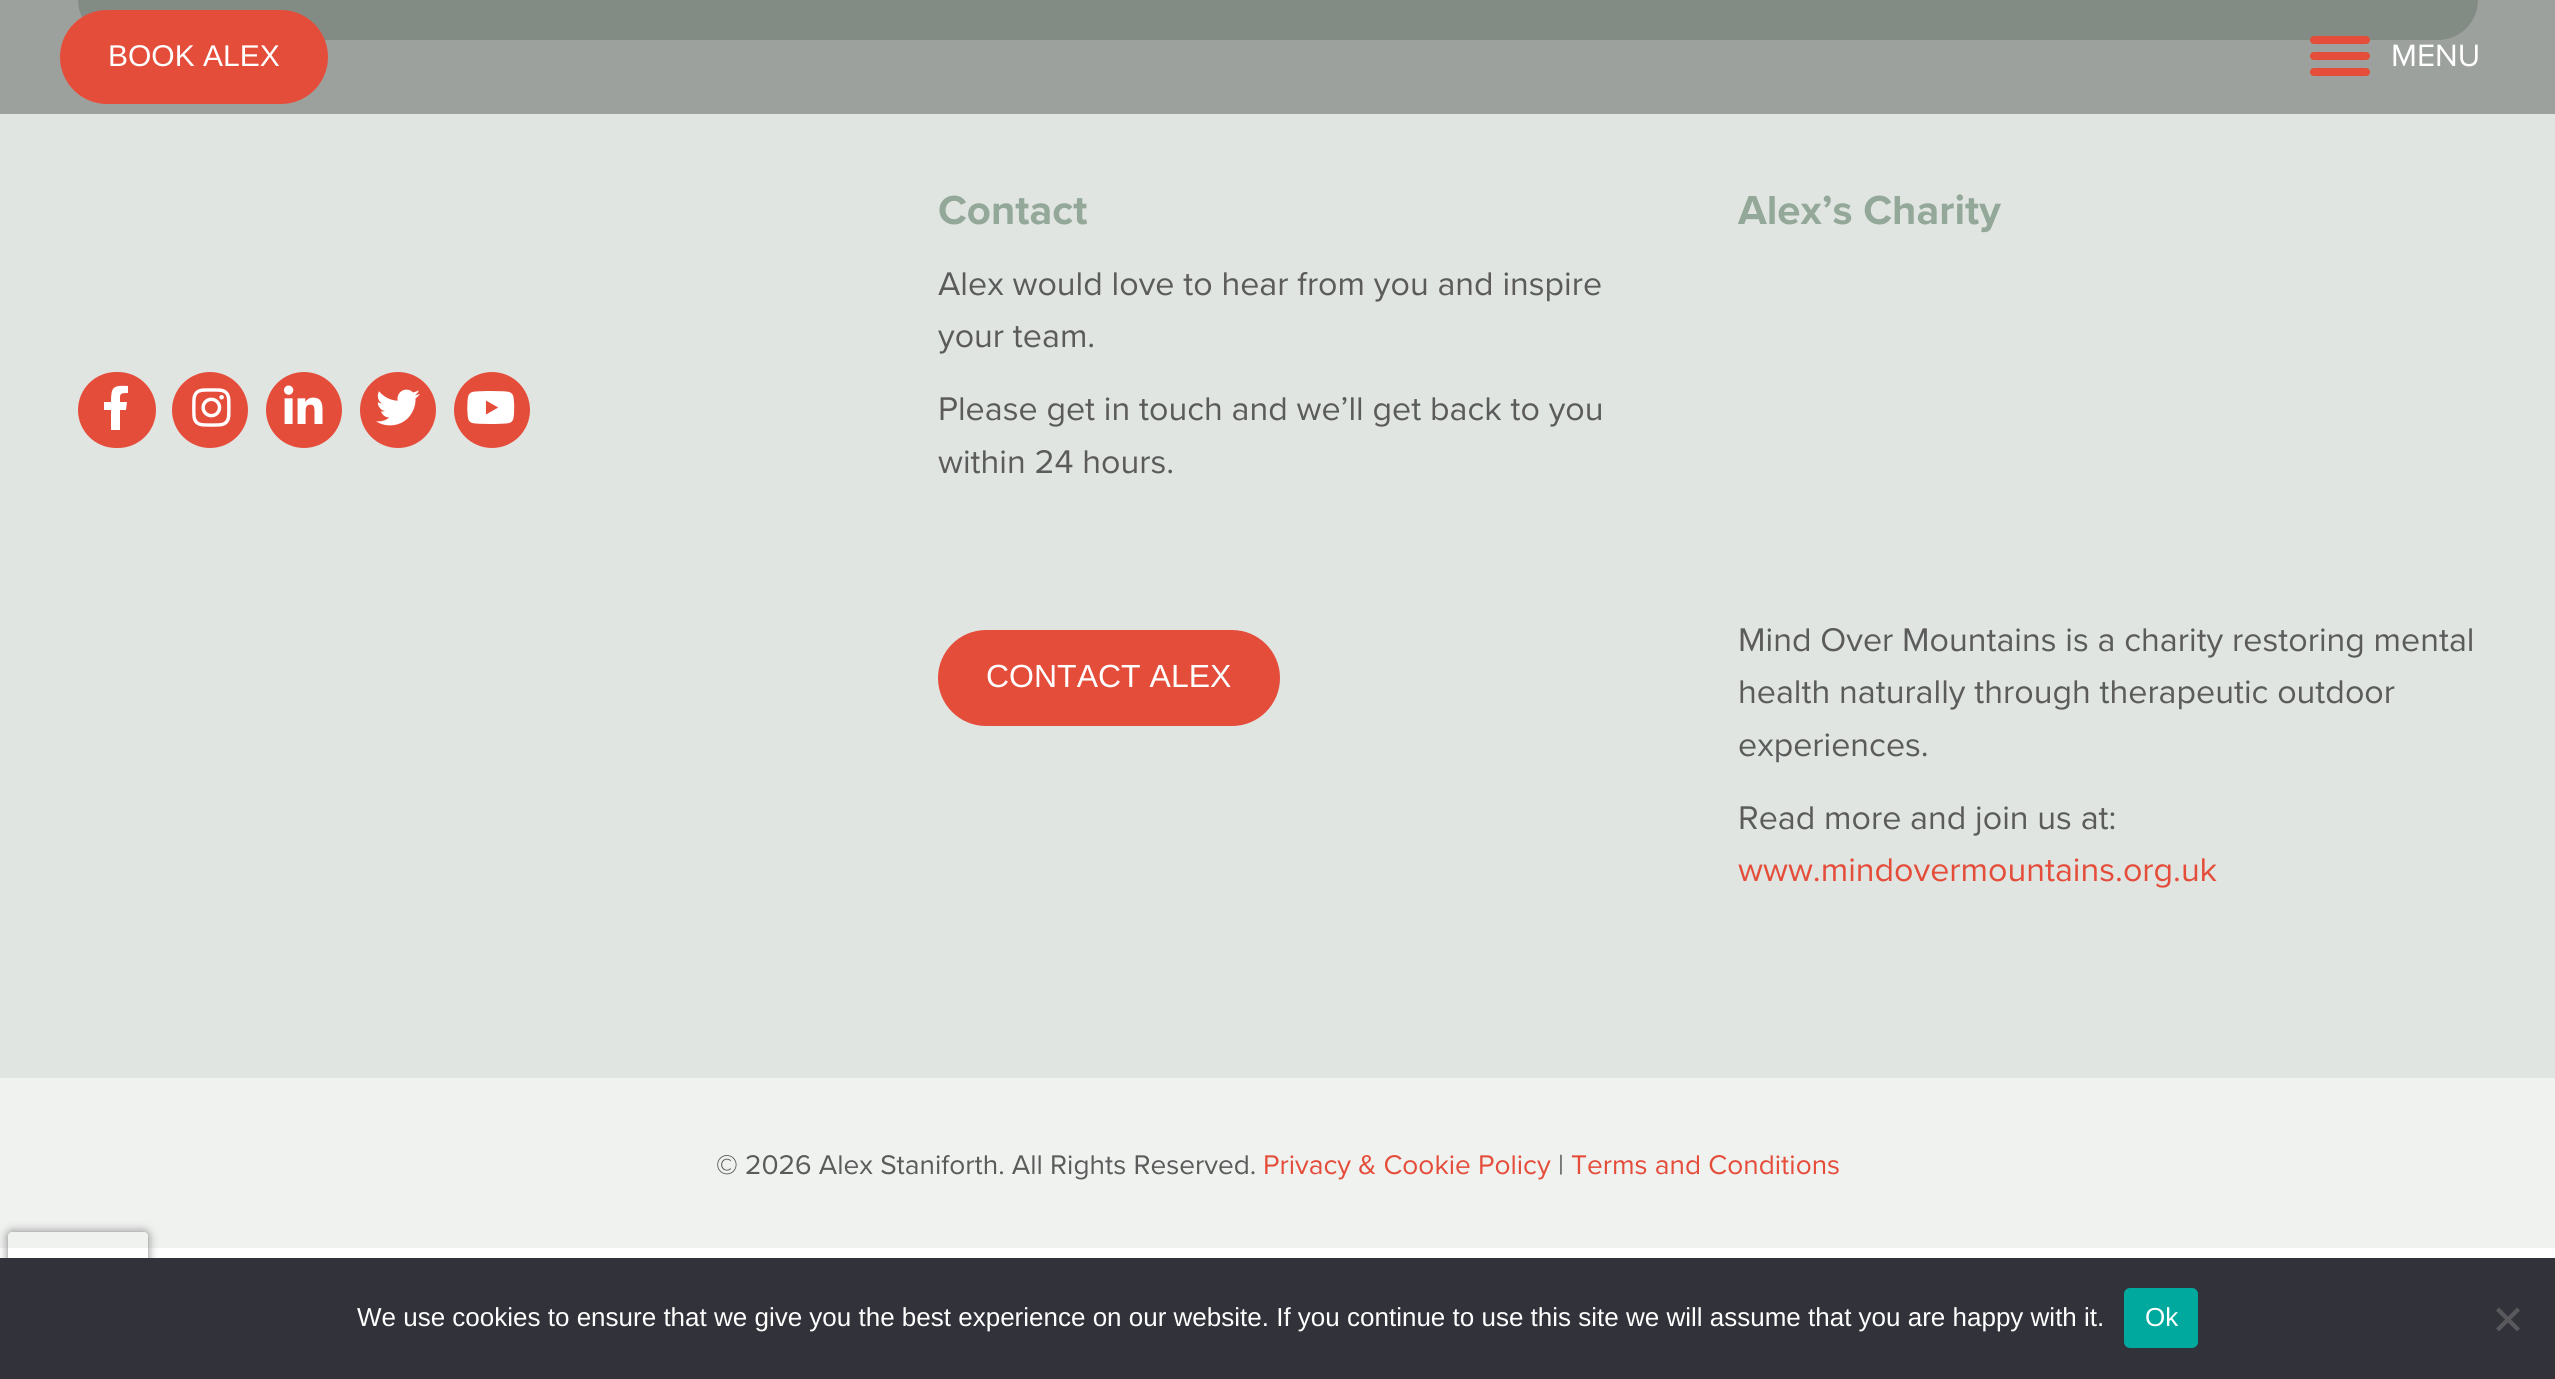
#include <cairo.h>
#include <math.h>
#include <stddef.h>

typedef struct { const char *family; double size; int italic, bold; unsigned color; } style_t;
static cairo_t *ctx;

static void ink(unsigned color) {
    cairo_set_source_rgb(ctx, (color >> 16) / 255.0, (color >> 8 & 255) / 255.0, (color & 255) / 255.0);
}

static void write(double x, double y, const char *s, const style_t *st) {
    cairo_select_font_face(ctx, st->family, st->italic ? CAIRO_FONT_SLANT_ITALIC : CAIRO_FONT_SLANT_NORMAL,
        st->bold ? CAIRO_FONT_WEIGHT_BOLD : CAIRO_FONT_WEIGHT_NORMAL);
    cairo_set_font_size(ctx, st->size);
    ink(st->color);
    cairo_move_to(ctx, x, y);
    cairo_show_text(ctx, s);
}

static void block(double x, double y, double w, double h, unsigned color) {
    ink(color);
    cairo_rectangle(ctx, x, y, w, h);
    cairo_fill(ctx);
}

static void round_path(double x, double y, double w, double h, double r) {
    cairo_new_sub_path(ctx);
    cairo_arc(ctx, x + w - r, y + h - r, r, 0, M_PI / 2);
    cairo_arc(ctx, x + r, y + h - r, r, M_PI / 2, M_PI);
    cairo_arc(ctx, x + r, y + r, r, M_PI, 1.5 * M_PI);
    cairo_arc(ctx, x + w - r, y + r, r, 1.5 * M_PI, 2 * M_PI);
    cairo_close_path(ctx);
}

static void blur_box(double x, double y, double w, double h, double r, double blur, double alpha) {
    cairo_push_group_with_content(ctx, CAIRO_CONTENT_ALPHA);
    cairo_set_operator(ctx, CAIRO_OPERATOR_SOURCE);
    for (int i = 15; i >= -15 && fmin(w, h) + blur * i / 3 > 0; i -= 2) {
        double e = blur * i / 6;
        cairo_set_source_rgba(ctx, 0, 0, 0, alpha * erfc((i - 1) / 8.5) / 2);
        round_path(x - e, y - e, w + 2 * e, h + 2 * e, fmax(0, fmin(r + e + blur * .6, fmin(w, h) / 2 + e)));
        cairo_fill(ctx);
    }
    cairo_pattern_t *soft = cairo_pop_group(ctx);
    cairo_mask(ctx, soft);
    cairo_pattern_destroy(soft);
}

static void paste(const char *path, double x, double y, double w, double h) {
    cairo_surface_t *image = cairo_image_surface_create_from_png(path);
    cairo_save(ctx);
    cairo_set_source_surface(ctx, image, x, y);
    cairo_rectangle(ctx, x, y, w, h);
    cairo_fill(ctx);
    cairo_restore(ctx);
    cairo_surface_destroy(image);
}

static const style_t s1 = {"Liberation Sans", 30, 0, 0, 0xffffff};
static const style_t s2 = {"Proxima Nova", 32, 0, 0, 0xffffff};
static const style_t s3 = {"Proxima Nova", 42, 0, 1, 0x94a89a};
static const style_t s4 = {"Proxima Nova", 34, 0, 0, 0x5b5b5b};
static const style_t s5 = {"Liberation Sans", 32, 0, 0, 0xffffff};
static const style_t s6 = {"Proxima Nova", 34, 0, 0, 0xe54d3b};
static const style_t s7 = {"Proxima Nova", 28, 0, 0, 0x5b5b5b};
static const style_t s8 = {"Proxima Nova", 28, 0, 0, 0xe54d3b};
static const style_t s9 = {"Liberation Sans", 26, 0, 0, 0xffffff};

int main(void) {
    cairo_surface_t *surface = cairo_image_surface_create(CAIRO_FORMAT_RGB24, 2555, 1379);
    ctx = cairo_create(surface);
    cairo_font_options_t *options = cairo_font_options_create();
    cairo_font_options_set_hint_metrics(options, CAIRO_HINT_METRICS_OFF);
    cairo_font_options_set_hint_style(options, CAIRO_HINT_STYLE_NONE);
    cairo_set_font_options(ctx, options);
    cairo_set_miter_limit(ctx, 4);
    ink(0xe0e5e1);
    cairo_paint(ctx);
    ink(0xbbc6be);
    cairo_new_path(ctx);
    cairo_move_to(ctx, 78, -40);
    cairo_line_to(ctx, 2478, -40);
    cairo_line_to(ctx, 2478, 0);
    cairo_curve_to(ctx, 2478, 22, 2460, 40, 2438, 40);
    cairo_line_to(ctx, 118, 40);
    cairo_curve_to(ctx, 96, 40, 78, 22, 78, 0);
    cairo_close_path(ctx);
    cairo_fill(ctx);
    cairo_set_source_rgba(ctx, 0, 0, 0, 0.3);
    cairo_rectangle(ctx, 0, 0, 2555, 114);
    cairo_fill(ctx);
    ink(0xe54d3b);
    round_path(60, 10, 268, 94, 47);
    cairo_fill(ctx);
    write(108, 66, "BOOK ALEX", &s1);
    ink(0xe54d3b);
    round_path(2310, 52, 60, 8, 4);
    cairo_fill(ctx);
    round_path(2310, 36, 60, 8, 4);
    cairo_fill(ctx);
    round_path(2310, 68, 60, 8, 4);
    cairo_fill(ctx);
    write(2391, 66, "MENU", &s2);
    ink(0xe54d3b);
    round_path(78, 372, 78, 76, 38);
    cairo_fill(ctx);
    ink(0xffffff);
    cairo_new_path(ctx);
    cairo_move_to(ctx, 126, 410);
    cairo_line_to(ctx, 120, 410);
    cairo_line_to(ctx, 120, 430);
    cairo_line_to(ctx, 111, 430);
    cairo_line_to(ctx, 111, 410);
    cairo_line_to(ctx, 104, 410);
    cairo_line_to(ctx, 104, 402);
    cairo_line_to(ctx, 111, 402);
    cairo_curve_to(ctx, 111, 387, 113, 385, 128, 386);
    cairo_line_to(ctx, 128, 393);
    cairo_curve_to(ctx, 119, 393, 120, 394, 120, 402);
    cairo_line_to(ctx, 127, 402);
    cairo_close_path(ctx);
    cairo_fill(ctx);
    ink(0xe54d3b);
    cairo_arc(ctx, 210, 410, 38, 0, 2 * M_PI);
    cairo_fill(ctx);
    paste("pic1.png", 192, 388, 39, 39);
    cairo_arc(ctx, 304, 410, 38, 0, 2 * M_PI);
    cairo_fill(ctx);
    paste("pic2.png", 284, 385, 39, 39);
    cairo_arc(ctx, 398, 410, 38, 0, 2 * M_PI);
    cairo_fill(ctx);
    paste("pic3.png", 376, 389, 44, 37);
    cairo_arc(ctx, 492, 410, 38, 0, 2 * M_PI);
    cairo_fill(ctx);
    paste("pic4.png", 467, 391, 48, 33);
    write(938, 224, "Contact", &s3);
    write(938, 295, "Alex would love to hear from you and inspire", &s4);
    write(938, 347, "your team.", &s4);
    write(938, 420, "Please get in touch and we’ll get back to you", &s4);
    write(938, 473, "within 24 hours.", &s4);
    ink(0xe54d3b);
    round_path(938, 630, 342, 96, 48);
    cairo_fill(ctx);
    write(986, 687, "CONTACT ALEX", &s5);
    write(1738, 224, "Alex’s Charity", &s3);
    write(1738, 651, "Mind Over Mountains is a charity restoring mental", &s4);
    write(1738, 703, "health naturally through therapeutic outdoor", &s4);
    write(1738, 756, "experiences.", &s4);
    write(1738, 829, "Read more and join us at:", &s4);
    write(1738, 881, "www.mindovermountains.org.uk", &s6);
    block(0, 1078, 2555, 170, 0xf0f2f0);
    write(716, 1174, "© 2026 Alex Staniforth. All Rights Reserved.", &s7);
    write(1263, 1174, "Privacy & Cookie Policy", &s8);
    write(1558, 1174, "|", &s7);
    write(1571, 1174, "Terms and Conditions", &s8);
    block(0, 1248, 2555, 10, 0xffffff);
    cairo_save(ctx);
    cairo_set_fill_rule(ctx, CAIRO_FILL_RULE_EVEN_ODD);
    cairo_new_path(ctx);
    cairo_move_to(ctx, 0, 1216);
    cairo_line_to(ctx, 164, 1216);
    cairo_line_to(ctx, 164, 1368);
    cairo_line_to(ctx, 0, 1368);
    cairo_close_path(ctx);
    cairo_move_to(ctx, 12, 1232);
    cairo_line_to(ctx, 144, 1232);
    cairo_curve_to(ctx, 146, 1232, 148, 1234, 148, 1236);
    cairo_line_to(ctx, 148, 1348);
    cairo_curve_to(ctx, 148, 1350, 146, 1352, 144, 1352);
    cairo_line_to(ctx, 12, 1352);
    cairo_curve_to(ctx, 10, 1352, 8, 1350, 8, 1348);
    cairo_line_to(ctx, 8, 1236);
    cairo_curve_to(ctx, 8, 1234, 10, 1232, 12, 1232);
    cairo_close_path(ctx);
    cairo_clip(ctx);
    ink(0x808080);
    blur_box(8, 1232, 140, 120, 4, 5, 1);
    cairo_restore(ctx);
    block(0, 1258, 2555, 121, 0x32323a);
    write(357, 1326, "We use cookies to ensure that we give you the best experience on our website. If you continue to use this site we will assume that you are happy with it.", &s9);
    ink(0x00a99d);
    round_path(2124, 1288, 74, 60, 6);
    cairo_fill(ctx);
    write(2145, 1326, "Ok", &s9);
    ink(0x59595d);
    cairo_new_path(ctx);
    cairo_move_to(ctx, 2517, 1307.5);
    cairo_line_to(ctx, 2520, 1310.5);
    cairo_line_to(ctx, 2499, 1331.5);
    cairo_line_to(ctx, 2496, 1328.5);
    cairo_close_path(ctx);
    cairo_fill(ctx);
    cairo_new_path(ctx);
    cairo_move_to(ctx, 2496, 1310.5);
    cairo_line_to(ctx, 2499, 1307.5);
    cairo_line_to(ctx, 2520, 1328.5);
    cairo_line_to(ctx, 2517, 1331.5);
    cairo_close_path(ctx);
    cairo_fill(ctx);
    cairo_surface_write_to_png(surface, "screenshot.png");
    cairo_font_options_destroy(options);
    cairo_destroy(ctx);
    cairo_surface_destroy(surface);
    return 0;
}
